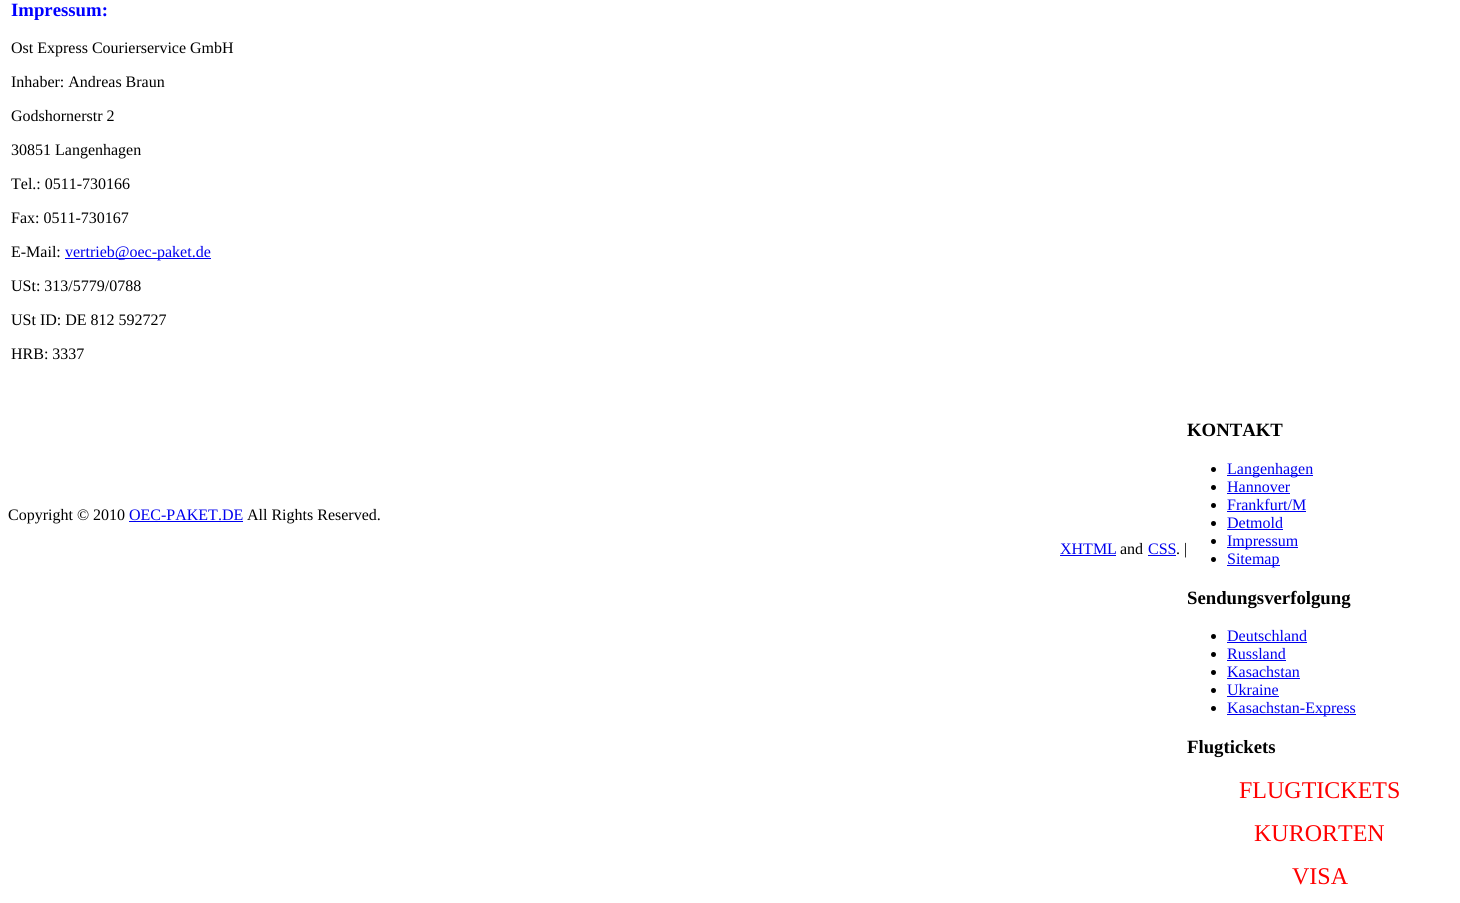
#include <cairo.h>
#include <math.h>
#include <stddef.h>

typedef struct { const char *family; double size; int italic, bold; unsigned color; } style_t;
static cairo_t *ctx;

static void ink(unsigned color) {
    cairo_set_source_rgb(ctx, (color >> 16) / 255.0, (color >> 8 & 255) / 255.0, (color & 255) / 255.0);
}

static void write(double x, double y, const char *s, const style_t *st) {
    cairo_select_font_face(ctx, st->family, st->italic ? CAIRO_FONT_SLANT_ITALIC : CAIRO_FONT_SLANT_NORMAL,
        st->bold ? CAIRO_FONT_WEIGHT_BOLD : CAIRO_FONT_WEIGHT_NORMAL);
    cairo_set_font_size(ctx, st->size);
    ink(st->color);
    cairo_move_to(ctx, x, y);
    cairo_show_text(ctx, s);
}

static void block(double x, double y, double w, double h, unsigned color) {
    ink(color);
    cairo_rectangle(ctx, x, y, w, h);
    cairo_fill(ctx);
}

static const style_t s1 = {"Liberation Serif", 18.75, 0, 1, 0x0000ff};
static const style_t s2 = {"Liberation Serif", 16, 0, 0, 0x000000};
static const style_t s3 = {"Liberation Serif", 16, 0, 0, 0x0000ee};
static const style_t s4 = {"Liberation Serif", 18.75, 0, 1, 0x000000};
static const style_t s5 = {"Liberation Serif", 24, 0, 0, 0xff0000};

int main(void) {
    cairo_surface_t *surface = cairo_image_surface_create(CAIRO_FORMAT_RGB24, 1460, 903);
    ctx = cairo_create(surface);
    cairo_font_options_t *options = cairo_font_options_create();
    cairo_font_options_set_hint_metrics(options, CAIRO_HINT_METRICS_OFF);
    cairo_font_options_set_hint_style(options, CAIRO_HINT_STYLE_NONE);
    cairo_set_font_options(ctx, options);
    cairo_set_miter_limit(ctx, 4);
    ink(0xffffff);
    cairo_paint(ctx);
    write(11, 16, "Impressum:", &s1);
    write(11, 53, "Ost Express Courierservice GmbH", &s2);
    write(11, 87, "Inhaber: Andreas Braun", &s2);
    write(11, 121, "Godshornerstr 2", &s2);
    write(11, 155, "30851 Langenhagen", &s2);
    write(11, 189, "Tel.: 0511-730166", &s2);
    write(11, 223, "Fax: 0511-730167", &s2);
    write(11, 257, "E-Mail:", &s2);
    block(65, 258, 146, 1, 0x0000ee);
    write(65, 257, "vertrieb@oec-paket.de", &s3);
    write(11, 291, "USt: 313/5779/0788", &s2);
    write(11, 325, "USt ID: DE 812 592727", &s2);
    write(11, 359, "HRB: 3337", &s2);
    write(1187, 436, "KONTAKT", &s4);
    cairo_new_path(ctx);
    cairo_arc(ctx, 1213.5, 469.5, 2.5, 0, 2 * M_PI);
    cairo_fill(ctx);
    block(1227, 475, 86, 1, 0x0000ee);
    write(1227, 474, "Langenhagen", &s3);
    ink(0x000000);
    cairo_new_path(ctx);
    cairo_arc(ctx, 1213.5, 487.5, 2.5, 0, 2 * M_PI);
    cairo_fill(ctx);
    write(1227, 492, "Hannover", &s3);
    block(1227, 493, 63, 1, 0x0000ee);
    ink(0x000000);
    cairo_new_path(ctx);
    cairo_arc(ctx, 1213.5, 505.5, 2.5, 0, 2 * M_PI);
    cairo_fill(ctx);
    write(1227, 510, "Frankfurt/M", &s3);
    block(1227, 511, 79, 1, 0x0000ee);
    ink(0x000000);
    cairo_new_path(ctx);
    cairo_arc(ctx, 1213.5, 523.5, 2.5, 0, 2 * M_PI);
    cairo_fill(ctx);
    write(1227, 528, "Detmold", &s3);
    block(1227, 529, 56, 1, 0x0000ee);
    ink(0x000000);
    cairo_new_path(ctx);
    cairo_arc(ctx, 1213.5, 541.5, 2.5, 0, 2 * M_PI);
    cairo_fill(ctx);
    block(1227, 547, 71, 1, 0x0000ee);
    write(1227, 546, "Impressum", &s3);
    ink(0x000000);
    cairo_new_path(ctx);
    cairo_arc(ctx, 1213.5, 559.5, 2.5, 0, 2 * M_PI);
    cairo_fill(ctx);
    block(1227, 565, 53, 1, 0x0000ee);
    write(1227, 564, "Sitemap", &s3);
    write(1187, 604, "Sendungsverfolgung", &s4);
    cairo_new_path(ctx);
    cairo_arc(ctx, 1213.5, 636.5, 2.5, 0, 2 * M_PI);
    cairo_fill(ctx);
    write(1227, 641, "Deutschland", &s3);
    block(1227, 642, 80, 1, 0x0000ee);
    ink(0x000000);
    cairo_new_path(ctx);
    cairo_arc(ctx, 1213.5, 654.5, 2.5, 0, 2 * M_PI);
    cairo_fill(ctx);
    write(1227, 659, "Russland", &s3);
    block(1227, 660, 59, 1, 0x0000ee);
    ink(0x000000);
    cairo_new_path(ctx);
    cairo_arc(ctx, 1213.5, 672.5, 2.5, 0, 2 * M_PI);
    cairo_fill(ctx);
    write(1227, 677, "Kasachstan", &s3);
    block(1227, 678, 73, 1, 0x0000ee);
    ink(0x000000);
    cairo_new_path(ctx);
    cairo_arc(ctx, 1213.5, 690.5, 2.5, 0, 2 * M_PI);
    cairo_fill(ctx);
    write(1227, 695, "Ukraine", &s3);
    block(1227, 696, 52, 1, 0x0000ee);
    ink(0x000000);
    cairo_new_path(ctx);
    cairo_arc(ctx, 1213.5, 708.5, 2.5, 0, 2 * M_PI);
    cairo_fill(ctx);
    block(1227, 714, 129, 1, 0x0000ee);
    write(1227, 713, "Kasachstan-Express", &s3);
    write(1187, 753, "Flugtickets", &s4);
    write(1239, 798, "FLUGTICKETS", &s5);
    write(1254, 841, "KURORTEN", &s5);
    write(1292, 884, "VISA", &s5);
    write(8, 520, "Copyright © 2010", &s2);
    write(129, 520, "OEC-PAKET.DE", &s3);
    block(129, 521, 114, 1, 0x0000ee);
    write(247, 520, "All Rights Reserved.", &s2);
    write(1060, 554, "XHTML", &s3);
    block(1060, 555, 56, 1, 0x0000ee);
    write(1120, 554, "and", &s2);
    write(1148, 554, "CSS", &s3);
    block(1148, 555, 28, 1, 0x0000ee);
    write(1176, 554, ". |", &s2);
    cairo_surface_write_to_png(surface, "screenshot.png");
    cairo_font_options_destroy(options);
    cairo_destroy(ctx);
    cairo_surface_destroy(surface);
    return 0;
}
